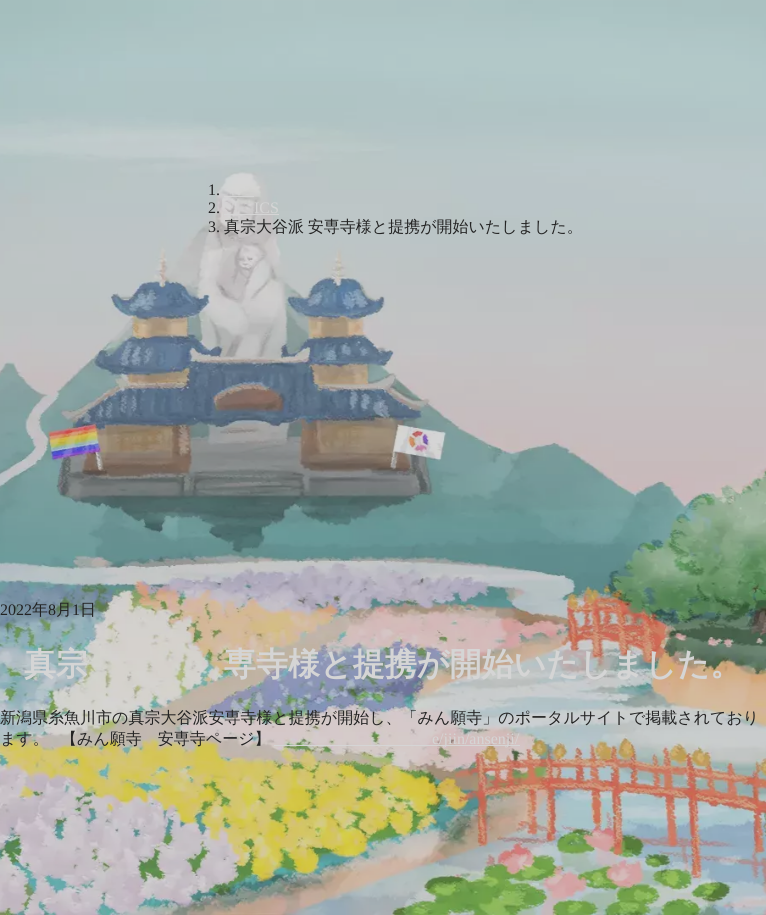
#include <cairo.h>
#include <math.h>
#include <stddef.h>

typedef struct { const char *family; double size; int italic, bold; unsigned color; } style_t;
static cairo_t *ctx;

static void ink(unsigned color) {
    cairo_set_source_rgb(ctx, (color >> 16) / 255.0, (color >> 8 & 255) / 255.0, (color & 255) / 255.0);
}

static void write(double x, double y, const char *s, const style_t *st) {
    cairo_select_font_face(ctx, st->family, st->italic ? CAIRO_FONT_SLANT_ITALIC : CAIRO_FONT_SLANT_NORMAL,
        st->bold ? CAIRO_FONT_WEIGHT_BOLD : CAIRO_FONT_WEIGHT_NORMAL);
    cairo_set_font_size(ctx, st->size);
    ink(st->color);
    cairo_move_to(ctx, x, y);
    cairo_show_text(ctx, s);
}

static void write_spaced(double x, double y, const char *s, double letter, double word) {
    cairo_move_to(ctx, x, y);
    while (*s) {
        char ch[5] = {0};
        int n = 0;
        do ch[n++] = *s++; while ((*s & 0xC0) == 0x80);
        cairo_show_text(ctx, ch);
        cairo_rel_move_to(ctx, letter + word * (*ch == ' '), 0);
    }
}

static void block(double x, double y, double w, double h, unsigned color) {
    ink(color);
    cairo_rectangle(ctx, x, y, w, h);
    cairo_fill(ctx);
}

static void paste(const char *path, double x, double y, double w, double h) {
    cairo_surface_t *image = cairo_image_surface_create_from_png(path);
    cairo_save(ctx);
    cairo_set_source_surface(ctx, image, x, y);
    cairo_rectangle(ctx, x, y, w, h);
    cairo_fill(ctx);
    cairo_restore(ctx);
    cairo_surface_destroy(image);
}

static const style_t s1 = {"Liberation Serif", 16, 0, 0, 0x232323};
static const style_t s2 = {"Liberation Serif", 16, 0, 0, 0xd5d5d5};
static const style_t s3 = {"WenQuanYi Zen Hei Medium", 16, 0, 0, 0x232323};

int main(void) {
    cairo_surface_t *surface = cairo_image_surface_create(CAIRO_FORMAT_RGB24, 766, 915);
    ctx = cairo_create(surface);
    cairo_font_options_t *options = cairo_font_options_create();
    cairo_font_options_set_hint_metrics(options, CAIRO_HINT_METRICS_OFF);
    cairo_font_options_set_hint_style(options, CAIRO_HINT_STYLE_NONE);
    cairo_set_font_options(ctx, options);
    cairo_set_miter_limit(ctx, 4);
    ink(0xffffff);
    cairo_paint(ctx);
    paste("pic1.png", 0, 0, 766, 915);
    write(208, 195, "1.", &s1);
    block(224, 196, 30, 1, 0xd5d5d5);
    write(208, 213, "2.", &s1);
    write(254, 213, "ICS", &s2);
    block(224, 214, 55, 1, 0xd5d5d5);
    write(208, 232, "3.", &s1);
    cairo_select_font_face(ctx, "WenQuanYi Zen Hei Medium", CAIRO_FONT_SLANT_NORMAL, CAIRO_FONT_WEIGHT_NORMAL);
    write_spaced(224, 232, "真宗大谷派 安専寺様と提携が開始いたしました。", 0, -1);
    write(0, 615, "2022", &s1);
    write(32, 615, "年", &s3);
    write(48, 615, "8", &s1);
    write(56, 615, "月", &s3);
    write(72, 615, "1", &s1);
    write(80, 615, "日", &s3);
    cairo_select_font_face(ctx, "WenQuanYi Zen Hei", CAIRO_FONT_SLANT_NORMAL, CAIRO_FONT_WEIGHT_BOLD);
    cairo_set_font_size(ctx, 32);
    ink(0xd5d5d5);
    write_spaced(24, 675, "真宗", 0, -2);
    write_spaced(224, 675, "専寺様と提携が開始いたしました。", 0, -2);
    write(0, 723, "新潟県糸魚川市の真宗大谷派安専寺様と提携が開始し、「みん願寺」のポータルサイトで掲載されており", &s3);
    write(0, 744, "ます。", &s3);
    write(61, 744, "【みん願寺　安専寺ページ】", &s3);
    block(274, 745, 246, 1, 0xd5d5d5);
    write(432, 744, "e/jiin/ansenji/", &s2);
    cairo_surface_write_to_png(surface, "screenshot.png");
    cairo_font_options_destroy(options);
    cairo_destroy(ctx);
    cairo_surface_destroy(surface);
    return 0;
}
